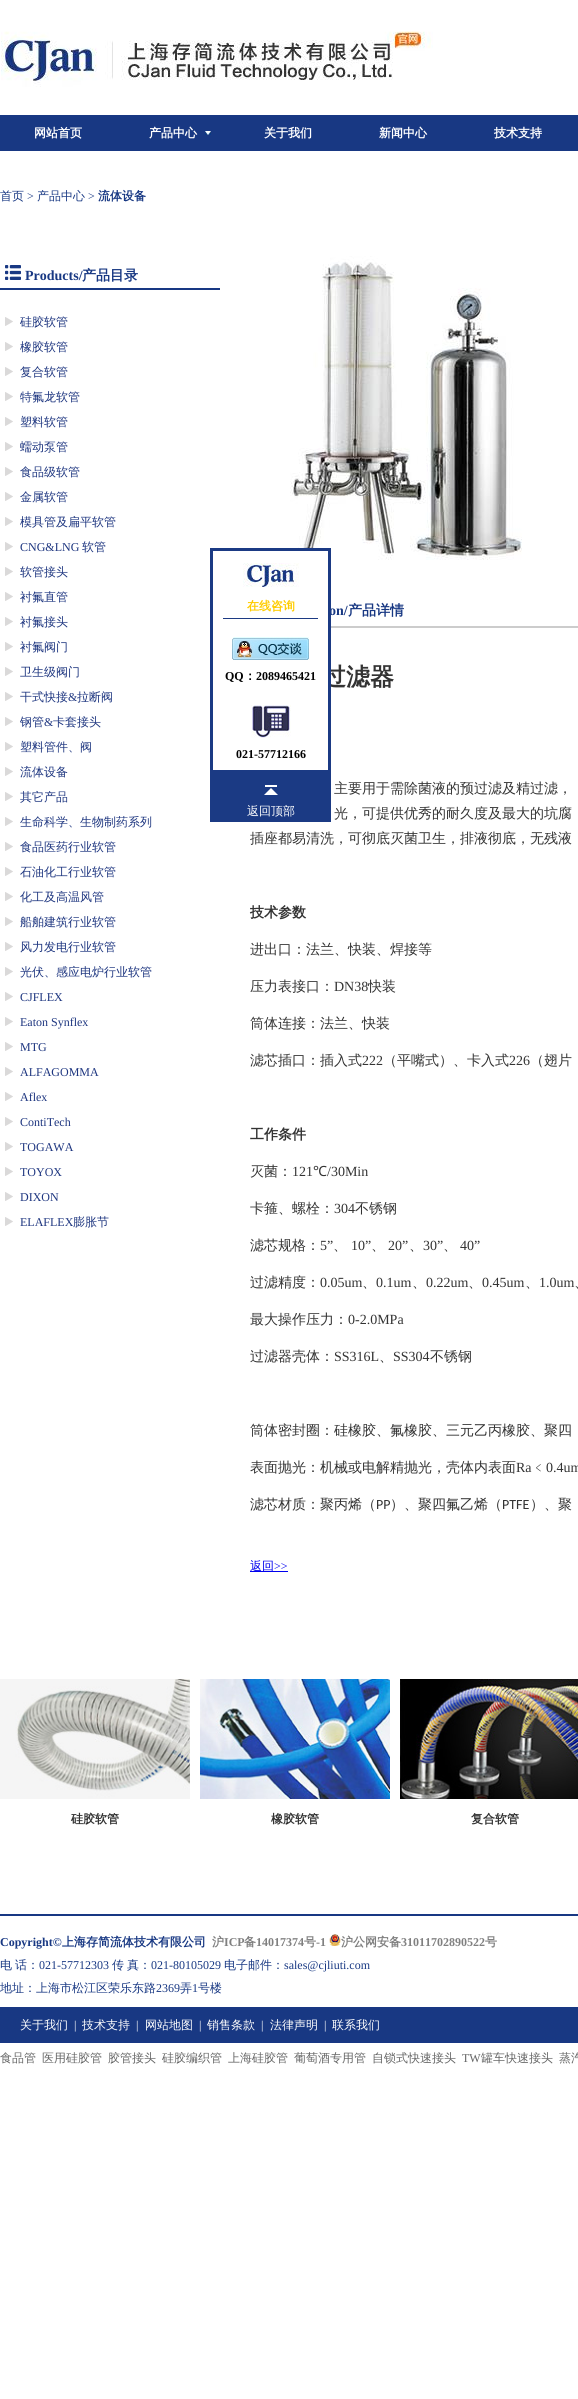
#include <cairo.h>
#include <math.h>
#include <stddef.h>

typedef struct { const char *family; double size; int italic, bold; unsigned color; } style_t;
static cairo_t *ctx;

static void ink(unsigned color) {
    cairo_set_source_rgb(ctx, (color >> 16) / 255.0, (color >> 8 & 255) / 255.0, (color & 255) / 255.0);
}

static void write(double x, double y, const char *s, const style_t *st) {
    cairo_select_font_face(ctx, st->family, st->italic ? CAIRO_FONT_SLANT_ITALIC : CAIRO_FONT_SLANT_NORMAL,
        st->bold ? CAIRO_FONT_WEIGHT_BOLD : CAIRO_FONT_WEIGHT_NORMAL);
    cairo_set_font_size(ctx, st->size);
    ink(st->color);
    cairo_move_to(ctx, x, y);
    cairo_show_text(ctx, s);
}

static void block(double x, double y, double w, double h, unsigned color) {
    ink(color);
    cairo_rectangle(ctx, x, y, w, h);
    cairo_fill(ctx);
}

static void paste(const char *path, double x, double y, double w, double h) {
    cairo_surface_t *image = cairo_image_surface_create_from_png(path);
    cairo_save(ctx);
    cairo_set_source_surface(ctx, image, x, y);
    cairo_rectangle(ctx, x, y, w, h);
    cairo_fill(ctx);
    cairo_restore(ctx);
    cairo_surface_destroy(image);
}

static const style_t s1 = {"WenQuanYi Zen Hei", 12, 0, 1, 0xffffff};
static const style_t s2 = {"WenQuanYi Zen Hei Medium", 12, 0, 0, 0x183883};
static const style_t s3 = {"Liberation Serif", 12, 0, 0, 0x183883};
static const style_t s4 = {"WenQuanYi Zen Hei", 12, 0, 1, 0x183883};
static const style_t s5 = {"Liberation Serif", 14, 0, 1, 0x183883};
static const style_t s6 = {"WenQuanYi Zen Hei", 14, 0, 1, 0x183883};
static const style_t s7 = {"WenQuanYi Zen Hei Medium", 12, 0, 0, 0x1e3680};
static const style_t s8 = {"Liberation Serif", 12, 0, 0, 0x1e3680};
static const style_t s9 = {"WenQuanYi Zen Hei", 24, 0, 1, 0x333333};
static const style_t s10 = {"WenQuanYi Zen Hei Medium", 14, 0, 0, 0x333333};
static const style_t s11 = {"WenQuanYi Zen Hei", 14, 0, 1, 0x333333};
static const style_t s12 = {"Liberation Serif", 14, 0, 0, 0x333333};
static const style_t s13 = {"Noto Sans", 14, 0, 0, 0x333333};
static const style_t s14 = {"Carlito", 14, 0, 0, 0x333333};
static const style_t s15 = {"WenQuanYi Zen Hei Medium", 12, 0, 0, 0x0000ee};
static const style_t s16 = {"Liberation Serif", 12, 0, 0, 0x0000ee};
static const style_t s17 = {"WenQuanYi Zen Hei", 12, 0, 1, 0xffcc00};
static const style_t s18 = {"Liberation Serif", 12, 0, 1, 0x000000};
static const style_t s19 = {"WenQuanYi Zen Hei", 12, 0, 1, 0x000000};
static const style_t s20 = {"WenQuanYi Zen Hei Medium", 12, 0, 0, 0xffffff};
static const style_t s21 = {"WenQuanYi Zen Hei", 12, 0, 1, 0x333333};
static const style_t s22 = {"Liberation Serif", 12, 0, 1, 0x183883};
static const style_t s23 = {"WenQuanYi Zen Hei", 12, 0, 1, 0x808080};
static const style_t s24 = {"Liberation Serif", 12, 0, 1, 0x808080};
static const style_t s25 = {"Liberation Serif", 12, 0, 0, 0xffffff};
static const style_t s26 = {"WenQuanYi Zen Hei Medium", 12, 0, 0, 0x666666};
static const style_t s27 = {"Liberation Serif", 12, 0, 0, 0x666666};

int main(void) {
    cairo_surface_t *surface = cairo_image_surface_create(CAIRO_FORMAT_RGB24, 578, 2399);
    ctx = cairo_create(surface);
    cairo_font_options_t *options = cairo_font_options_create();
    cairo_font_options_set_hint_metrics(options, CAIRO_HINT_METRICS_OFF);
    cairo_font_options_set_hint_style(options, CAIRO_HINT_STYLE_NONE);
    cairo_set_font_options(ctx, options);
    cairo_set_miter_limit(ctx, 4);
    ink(0xffffff);
    cairo_paint(ctx);
    paste("pic1.png", 1, 31, 432, 56);
    block(0, 115, 578, 36, 0x183883);
    write(34, 137, "网站首页", &s1);
    paste("pic2.png", 205, 131, 6, 4);
    write(149, 137, "产品中心", &s1);
    write(264, 137, "关于我们", &s1);
    write(379, 137, "新闻中心", &s1);
    write(494, 137, "技术支持", &s1);
    write(0, 200, "首页", &s2);
    write(27, 200, ">", &s3);
    write(37, 200, "产品中心", &s2);
    write(88, 200, ">", &s3);
    write(98, 200, "流体设备", &s4);
    block(0, 288, 220, 2, 0x183883);
    paste("pic3.png", 5, 265, 16, 15);
    write(25, 280, "Products/", &s5);
    write(82, 280, "产品目录", &s6);
    paste("pic4.png", 5, 317, 8, 9);
    write(20, 326, "硅胶软管", &s7);
    paste("pic4.png", 5, 342, 8, 9);
    write(20, 351, "橡胶软管", &s7);
    paste("pic4.png", 5, 367, 8, 9);
    write(20, 376, "复合软管", &s7);
    paste("pic4.png", 5, 392, 8, 9);
    write(20, 401, "特氟龙软管", &s7);
    paste("pic4.png", 5, 417, 8, 9);
    write(20, 426, "塑料软管", &s7);
    paste("pic4.png", 5, 442, 8, 9);
    write(20, 451, "蠕动泵管", &s7);
    paste("pic4.png", 5, 467, 8, 9);
    write(20, 476, "食品级软管", &s7);
    paste("pic4.png", 5, 492, 8, 9);
    write(20, 501, "金属软管", &s7);
    paste("pic4.png", 5, 517, 8, 9);
    write(20, 526, "模具管及扁平软管", &s7);
    paste("pic4.png", 5, 542, 8, 9);
    write(20, 551, "CNG&LNG", &s8);
    write(82, 551, "软管", &s7);
    paste("pic4.png", 5, 567, 8, 9);
    write(20, 576, "软管接头", &s7);
    paste("pic4.png", 5, 592, 8, 9);
    write(20, 601, "衬氟直管", &s7);
    paste("pic4.png", 5, 617, 8, 9);
    write(20, 626, "衬氟接头", &s7);
    paste("pic4.png", 5, 642, 8, 9);
    write(20, 651, "衬氟阀门", &s7);
    paste("pic4.png", 5, 667, 8, 9);
    write(20, 676, "卫生级阀门", &s7);
    paste("pic4.png", 5, 692, 8, 9);
    write(20, 701, "干式快接", &s7);
    write(68, 701, "&", &s8);
    write(77, 701, "拉断阀", &s7);
    paste("pic4.png", 5, 717, 8, 9);
    write(20, 726, "钢管", &s7);
    write(44, 726, "&", &s8);
    write(53, 726, "卡套接头", &s7);
    paste("pic4.png", 5, 742, 8, 9);
    write(20, 751, "塑料管件、阀", &s7);
    paste("pic4.png", 5, 767, 8, 9);
    write(20, 776, "流体设备", &s7);
    paste("pic4.png", 5, 792, 8, 9);
    write(20, 801, "其它产品", &s7);
    paste("pic4.png", 5, 817, 8, 9);
    write(20, 826, "生命科学、生物制药系列", &s7);
    paste("pic4.png", 5, 842, 8, 9);
    write(20, 851, "食品医药行业软管", &s7);
    paste("pic4.png", 5, 867, 8, 9);
    write(20, 876, "石油化工行业软管", &s7);
    paste("pic4.png", 5, 892, 8, 9);
    write(20, 901, "化工及高温风管", &s7);
    paste("pic4.png", 5, 917, 8, 9);
    write(20, 926, "船舶建筑行业软管", &s7);
    paste("pic4.png", 5, 942, 8, 9);
    write(20, 951, "风力发电行业软管", &s7);
    paste("pic4.png", 5, 967, 8, 9);
    write(20, 976, "光伏、感应电炉行业软管", &s7);
    paste("pic4.png", 5, 992, 8, 9);
    write(20, 1001, "CJFLEX", &s8);
    paste("pic4.png", 5, 1017, 8, 9);
    write(20, 1026, "Eaton Synflex", &s8);
    paste("pic4.png", 5, 1042, 8, 9);
    write(20, 1051, "MTG", &s8);
    paste("pic4.png", 5, 1067, 8, 9);
    write(20, 1076, "ALFAGOMMA", &s8);
    paste("pic4.png", 5, 1092, 8, 9);
    write(20, 1101, "Aflex", &s8);
    paste("pic4.png", 5, 1117, 8, 9);
    write(20, 1126, "ContiTech", &s8);
    paste("pic4.png", 5, 1142, 8, 9);
    write(20, 1151, "TOGAWA", &s8);
    paste("pic4.png", 5, 1167, 8, 9);
    write(20, 1176, "TOYOX", &s8);
    paste("pic4.png", 5, 1192, 8, 9);
    write(20, 1201, "DIXON", &s8);
    paste("pic4.png", 5, 1217, 8, 9);
    write(20, 1226, "ELAFLEX", &s8);
    write(73, 1226, "膨胀节", &s7);
    paste("pic5.png", 290, 256, 232, 304);
    block(331, 626, 247, 2, 0xcccccc);
    write(329, 615, "on/", &s5);
    write(348, 615, "产品详情", &s6);
    write(322, 685, "过滤器", &s9);
    write(334, 793, "主要用于需除菌液的预过滤及精过滤，", &s10);
    write(334, 818, "光，可提供优秀的耐久度及最大的坑腐", &s10);
    write(250, 843, "插座都易清洗，可彻底灭菌卫生，排液彻底，无残液", &s10);
    write(250, 917, "技术参数", &s11);
    write(250, 954, "进出口：法兰、快装、焊接等", &s10);
    write(250, 991, "压力表接口：", &s10);
    write(334, 991, "DN38", &s12);
    write(368, 991, "快装", &s10);
    write(250, 1028, "筒体连接：法兰、快装", &s10);
    write(250, 1065, "滤芯插口：插入式", &s10);
    write(362, 1065, "222", &s12);
    write(383, 1065, "（平嘴式）、卡入式", &s10);
    write(509, 1065, "226", &s12);
    write(530, 1065, "（翅片", &s10);
    write(250, 1139, "工作条件", &s11);
    write(250, 1176, "灭菌：", &s10);
    write(292, 1176, "121", &s12);
    write(313, 1176, "℃", &s13);
    write(327, 1176, "/30Min", &s12);
    write(250, 1213, "卡箍、螺栓：", &s10);
    write(334, 1213, "304", &s12);
    write(355, 1213, "不锈钢", &s10);
    write(250, 1250, "滤芯规格：", &s10);
    write(320, 1250, "5”", &s12);
    write(333, 1250, "、", &s10);
    write(351, 1250, "10”", &s12);
    write(371, 1250, "、", &s10);
    write(388, 1250, "20”", &s12);
    write(409, 1250, "、", &s10);
    write(423, 1250, "30”", &s12);
    write(443, 1250, "、", &s10);
    write(460, 1250, "40”", &s12);
    write(250, 1287, "过滤精度：", &s10);
    write(320, 1287, "0.05um", &s12);
    write(362, 1287, "、", &s10);
    write(376, 1287, "0.1um", &s12);
    write(412, 1287, "、", &s10);
    write(426, 1287, "0.22um", &s12);
    write(468, 1287, "、", &s10);
    write(482, 1287, "0.45um", &s12);
    write(525, 1287, "、", &s10);
    write(539, 1287, "1.0um", &s12);
    write(574, 1287, "、", &s10);
    write(250, 1324, "最大操作压力：", &s10);
    write(348, 1324, "0-2.0MPa", &s12);
    write(250, 1361, "过滤器壳体：", &s10);
    write(334, 1361, "SS316L", &s12);
    write(379, 1361, "、", &s10);
    write(393, 1361, "SS304", &s12);
    write(430, 1361, "不锈钢", &s10);
    write(250, 1435, "筒体密封圈：硅橡胶、氟橡胶、三元乙丙橡胶、聚四", &s10);
    write(250, 1472, "表面抛光：机械或电解精抛光，壳体内表面", &s10);
    write(516, 1472, "Ra", &s12);
    write(532, 1472, "﹤", &s10);
    write(546, 1472, "0.4um", &s12);
    write(250, 1509, "滤芯材质：聚丙烯（", &s10);
    write(376, 1509, "PP", &s14);
    write(390, 1509, "）、聚四氟乙烯（", &s10);
    write(502, 1509, "PTFE", &s14);
    write(530, 1509, "）、聚", &s10);
    block(250, 1571, 38, 1, 0x0000ee);
    write(250, 1570, "返回", &s15);
    write(274, 1570, ">>", &s16);
    paste("pic6.png", 210, 548, 121, 274);
    paste("pic7.png", 243, 563, 56, 24);
    block(223, 618, 95, 1, 0x1c3a83);
    write(247, 610, "在线咨询", &s17);
    paste("pic8.png", 232, 637, 77, 23);
    write(225, 680, "QQ", &s18);
    write(244, 680, "：", &s19);
    write(256, 680, "2089465421", &s18);
    paste("pic9.png", 251, 705, 40, 33);
    write(236, 758, "021-57712166", &s18);
    paste("pic10.png", 264, 785, 14, 10);
    write(247, 815, "返回顶部", &s20);
    paste("pic11.png", 0, 1679, 190, 120);
    write(71, 1823, "硅胶软管", &s21);
    paste("pic12.png", 200, 1679, 190, 120);
    write(271, 1823, "橡胶软管", &s21);
    paste("pic13.png", 400, 1679, 178, 120);
    write(471, 1823, "复合软管", &s21);
    block(0, 1914, 578, 2, 0x183883);
    write(0, 1946, "Copyright©", &s22);
    write(62, 1946, "上海存简流体技术有限公司", &s4);
    write(212, 1946, "沪", &s23);
    write(224, 1946, "ICP", &s24);
    write(244, 1946, "备", &s23);
    write(256, 1946, "14017374", &s24);
    write(304, 1946, "号", &s23);
    write(316, 1946, "-1", &s24);
    paste("pic14.png", 329, 1934, 12, 12);
    write(341, 1946, "沪公网安备", &s23);
    write(401, 1946, "31011702890522", &s24);
    write(485, 1946, "号", &s23);
    write(0, 1969, "电", &s2);
    write(15, 1969, "话：", &s2);
    write(39, 1969, "021-57712303", &s3);
    write(112, 1969, "传", &s2);
    write(127, 1969, "真：", &s2);
    write(151, 1969, "021-80105029", &s3);
    write(224, 1969, "电子邮件：", &s2);
    write(284, 1969, "sales@cjliuti.com", &s3);
    write(0, 1992, "地址：上海市松江区荣乐东路", &s2);
    write(156, 1992, "2369", &s3);
    write(180, 1992, "弄", &s2);
    write(192, 1992, "1", &s3);
    write(198, 1992, "号楼", &s2);
    block(0, 2007, 578, 36, 0x183883);
    write(20, 2029, "关于我们", &s20);
    write(74, 2029, "|", &s25);
    write(82, 2029, "技术支持", &s20);
    write(136, 2029, "|", &s25);
    write(145, 2029, "网站地图", &s20);
    write(199, 2029, "|", &s25);
    write(207, 2029, "销售条款", &s20);
    write(261, 2029, "|", &s25);
    write(270, 2029, "法律声明", &s20);
    write(324, 2029, "|", &s25);
    write(332, 2029, "联系我们", &s20);
    write(0, 2062, "食品管", &s26);
    write(42, 2062, "医用硅胶管", &s26);
    write(108, 2062, "胶管接头", &s26);
    write(162, 2062, "硅胶编织管", &s26);
    write(228, 2062, "上海硅胶管", &s26);
    write(294, 2062, "葡萄酒专用管", &s26);
    write(372, 2062, "自锁式快速接头", &s26);
    write(462, 2062, "TW", &s27);
    write(481, 2062, "罐车快速接头", &s26);
    write(559, 2062, "蒸汽", &s26);
    cairo_surface_write_to_png(surface, "screenshot.png");
    cairo_font_options_destroy(options);
    cairo_destroy(ctx);
    cairo_surface_destroy(surface);
    return 0;
}
